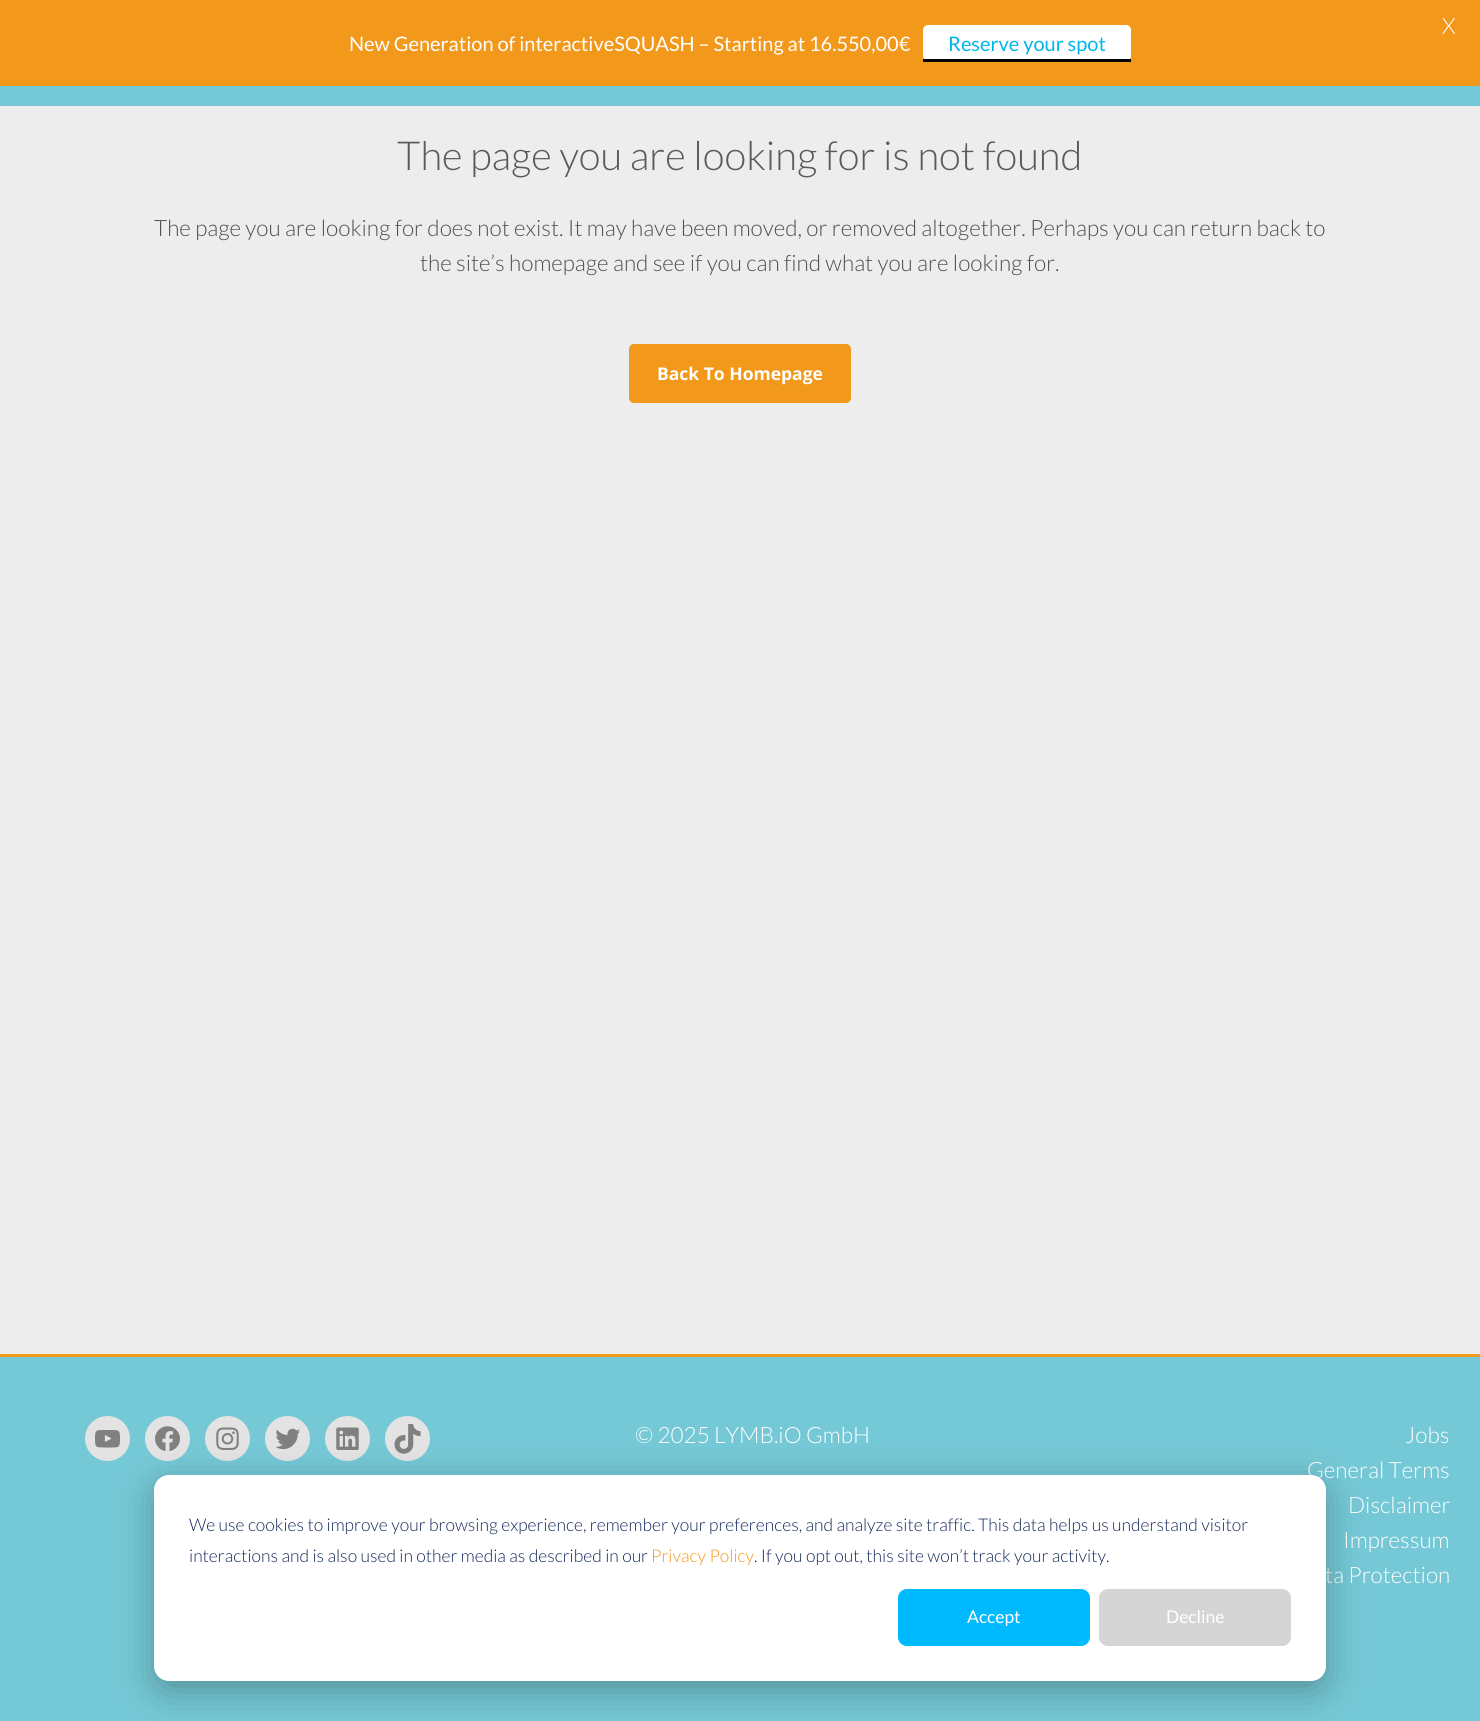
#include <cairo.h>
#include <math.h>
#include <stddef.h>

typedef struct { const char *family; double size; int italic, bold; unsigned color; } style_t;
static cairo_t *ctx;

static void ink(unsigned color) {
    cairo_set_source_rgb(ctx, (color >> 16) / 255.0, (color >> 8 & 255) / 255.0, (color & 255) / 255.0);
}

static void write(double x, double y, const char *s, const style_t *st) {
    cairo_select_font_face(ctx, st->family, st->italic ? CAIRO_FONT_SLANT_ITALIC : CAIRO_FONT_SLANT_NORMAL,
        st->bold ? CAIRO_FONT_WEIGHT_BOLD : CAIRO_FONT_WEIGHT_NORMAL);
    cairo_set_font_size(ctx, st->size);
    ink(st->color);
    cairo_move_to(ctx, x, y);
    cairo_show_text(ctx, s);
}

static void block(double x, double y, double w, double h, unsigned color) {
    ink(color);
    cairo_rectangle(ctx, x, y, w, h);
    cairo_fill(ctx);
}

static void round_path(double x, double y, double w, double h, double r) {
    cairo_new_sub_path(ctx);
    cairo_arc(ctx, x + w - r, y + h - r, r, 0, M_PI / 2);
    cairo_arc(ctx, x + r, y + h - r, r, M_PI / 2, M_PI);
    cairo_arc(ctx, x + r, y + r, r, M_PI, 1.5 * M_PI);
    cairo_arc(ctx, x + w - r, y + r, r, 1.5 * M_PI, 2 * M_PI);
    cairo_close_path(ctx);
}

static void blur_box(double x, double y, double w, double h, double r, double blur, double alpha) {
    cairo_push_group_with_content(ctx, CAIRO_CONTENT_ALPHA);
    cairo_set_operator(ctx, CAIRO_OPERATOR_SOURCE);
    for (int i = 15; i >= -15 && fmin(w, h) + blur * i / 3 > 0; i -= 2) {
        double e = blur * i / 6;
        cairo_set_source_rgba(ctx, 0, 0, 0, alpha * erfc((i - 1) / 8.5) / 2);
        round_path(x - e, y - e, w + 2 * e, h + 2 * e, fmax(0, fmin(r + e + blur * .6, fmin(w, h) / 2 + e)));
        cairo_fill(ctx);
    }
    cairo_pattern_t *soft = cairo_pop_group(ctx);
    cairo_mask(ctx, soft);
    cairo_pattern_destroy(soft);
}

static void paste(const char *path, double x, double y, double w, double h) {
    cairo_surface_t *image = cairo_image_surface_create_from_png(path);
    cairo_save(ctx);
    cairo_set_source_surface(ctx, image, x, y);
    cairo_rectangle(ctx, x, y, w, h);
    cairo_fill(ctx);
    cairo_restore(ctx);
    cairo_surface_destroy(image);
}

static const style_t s1 = {"Lato Light", 22.5, 0, 0, 0xffffff};
static const style_t s2 = {"Lato", 20, 0, 0, 0xffffff};
static const style_t s3 = {"Lato", 20, 0, 0, 0x00b7ea};
static const style_t s4 = {"Lato Light", 40, 0, 0, 0x5a5a5b};
static const style_t s5 = {"Lato Light", 22.5, 0, 0, 0x4f4f4f};
static const style_t s6 = {"Open Sans", 17.5, 0, 1, 0xffffff};
static const style_t s7 = {"Lato Light", 17.5, 0, 0, 0x15295a};
static const style_t s8 = {"Lato Light", 17.5, 0, 0, 0xf2981a};
static const style_t s9 = {"Lato", 17.5, 0, 0, 0xffffff};

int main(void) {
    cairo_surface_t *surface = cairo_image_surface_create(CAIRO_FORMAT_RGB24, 1480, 1721);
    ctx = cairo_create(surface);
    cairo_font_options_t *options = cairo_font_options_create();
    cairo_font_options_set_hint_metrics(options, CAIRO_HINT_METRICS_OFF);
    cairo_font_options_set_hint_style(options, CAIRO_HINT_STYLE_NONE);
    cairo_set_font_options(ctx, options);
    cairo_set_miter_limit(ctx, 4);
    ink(0xededed);
    cairo_paint(ctx);
    block(0, 0, 1480, 86, 0xf2981a);
    write(1442, 34, "X", &s1);
    write(349, 51, "New Generation of interactiveSQUASH – Starting at 16.550,00€", &s2);
    round_path(923, 25, 208, 36, 5);
    cairo_fill(ctx);
    write(948, 51, "Reserve your spot", &s3);
    block(923, 59, 208, 3, 0x000000);
    block(0, 86, 1480, 20, 0x75c8d6);
    write(397, 170, "The page you are looking for is not found", &s4);
    write(154, 236, "The page you are looking for does not exist. It may have been moved, or removed altogether. Perhaps you can return back to", &s5);
    write(420, 271, "the site’s homepage and see if you can find what you are looking for.", &s5);
    ink(0xf2981a);
    round_path(629, 344, 222, 59, 5);
    cairo_fill(ctx);
    write(657, 380, "Back To Homepage", &s6);
    block(0, 1357, 1480, 364, 0x75c8d6);
    block(0, 1354, 1480, 3, 0xf2981a);
    ink(0xe3e3e3);
    cairo_new_path(ctx);
    cairo_arc(ctx, 107.5, 1438.5, 22.5, 0, 2 * M_PI);
    cairo_fill(ctx);
    paste("pic1.png", 95, 1429, 25, 19);
    cairo_arc(ctx, 167.5, 1438.5, 22.5, 0, 2 * M_PI);
    cairo_fill(ctx);
    paste("pic2.png", 155, 1426, 25, 25);
    cairo_arc(ctx, 227.5, 1438.5, 22.5, 0, 2 * M_PI);
    cairo_fill(ctx);
    paste("pic3.png", 216, 1427, 23, 23);
    cairo_arc(ctx, 287.5, 1438.5, 22.5, 0, 2 * M_PI);
    cairo_fill(ctx);
    paste("pic4.png", 275, 1428, 25, 22);
    cairo_arc(ctx, 347.5, 1438.5, 22.5, 0, 2 * M_PI);
    cairo_fill(ctx);
    paste("pic5.png", 336, 1427, 23, 23);
    cairo_arc(ctx, 407.5, 1438.5, 22.5, 0, 2 * M_PI);
    cairo_fill(ctx);
    paste("pic6.png", 394, 1424, 27, 30);
    write(635, 1443, "© 2025 LYMB.iO GmbH", &s1);
    write(1405, 1443, "Jobs", &s1);
    write(1307, 1478, "General Terms", &s1);
    write(1348, 1513, "Disclaimer", &s1);
    write(1343, 1548, "Impressum", &s1);
    write(1325, 1583, "ta Protection", &s1);
    ink(0x000000);
    blur_box(154, 1485, 1172, 206, 15, 17.5, 0.28);
    ink(0xffffff);
    round_path(154, 1475, 1172, 206, 15);
    cairo_fill(ctx);
    write(189, 1531, "We use cookies to improve your browsing experience, remember your preferences, and analyze site traffic. This data helps us understand visitor", &s7);
    write(189, 1562, "interactions and is also used in other media as described in our", &s7);
    write(651, 1562, "Privacy Policy", &s8);
    write(754, 1562, ". If you opt out, this site won’t track your activity.", &s7);
    ink(0x00baff);
    round_path(898.5, 1589.5, 191, 56, 8.5);
    cairo_fill_preserve(ctx);
    cairo_set_line_width(ctx, 1);
    cairo_stroke(ctx);
    write(967, 1623, "Accept", &s9);
    ink(0xd5d5d5);
    round_path(1099.5, 1589.5, 191, 56, 8.5);
    cairo_fill_preserve(ctx);
    cairo_stroke(ctx);
    write(1166, 1623, "Decline", &s9);
    cairo_surface_write_to_png(surface, "screenshot.png");
    cairo_font_options_destroy(options);
    cairo_destroy(ctx);
    cairo_surface_destroy(surface);
    return 0;
}
